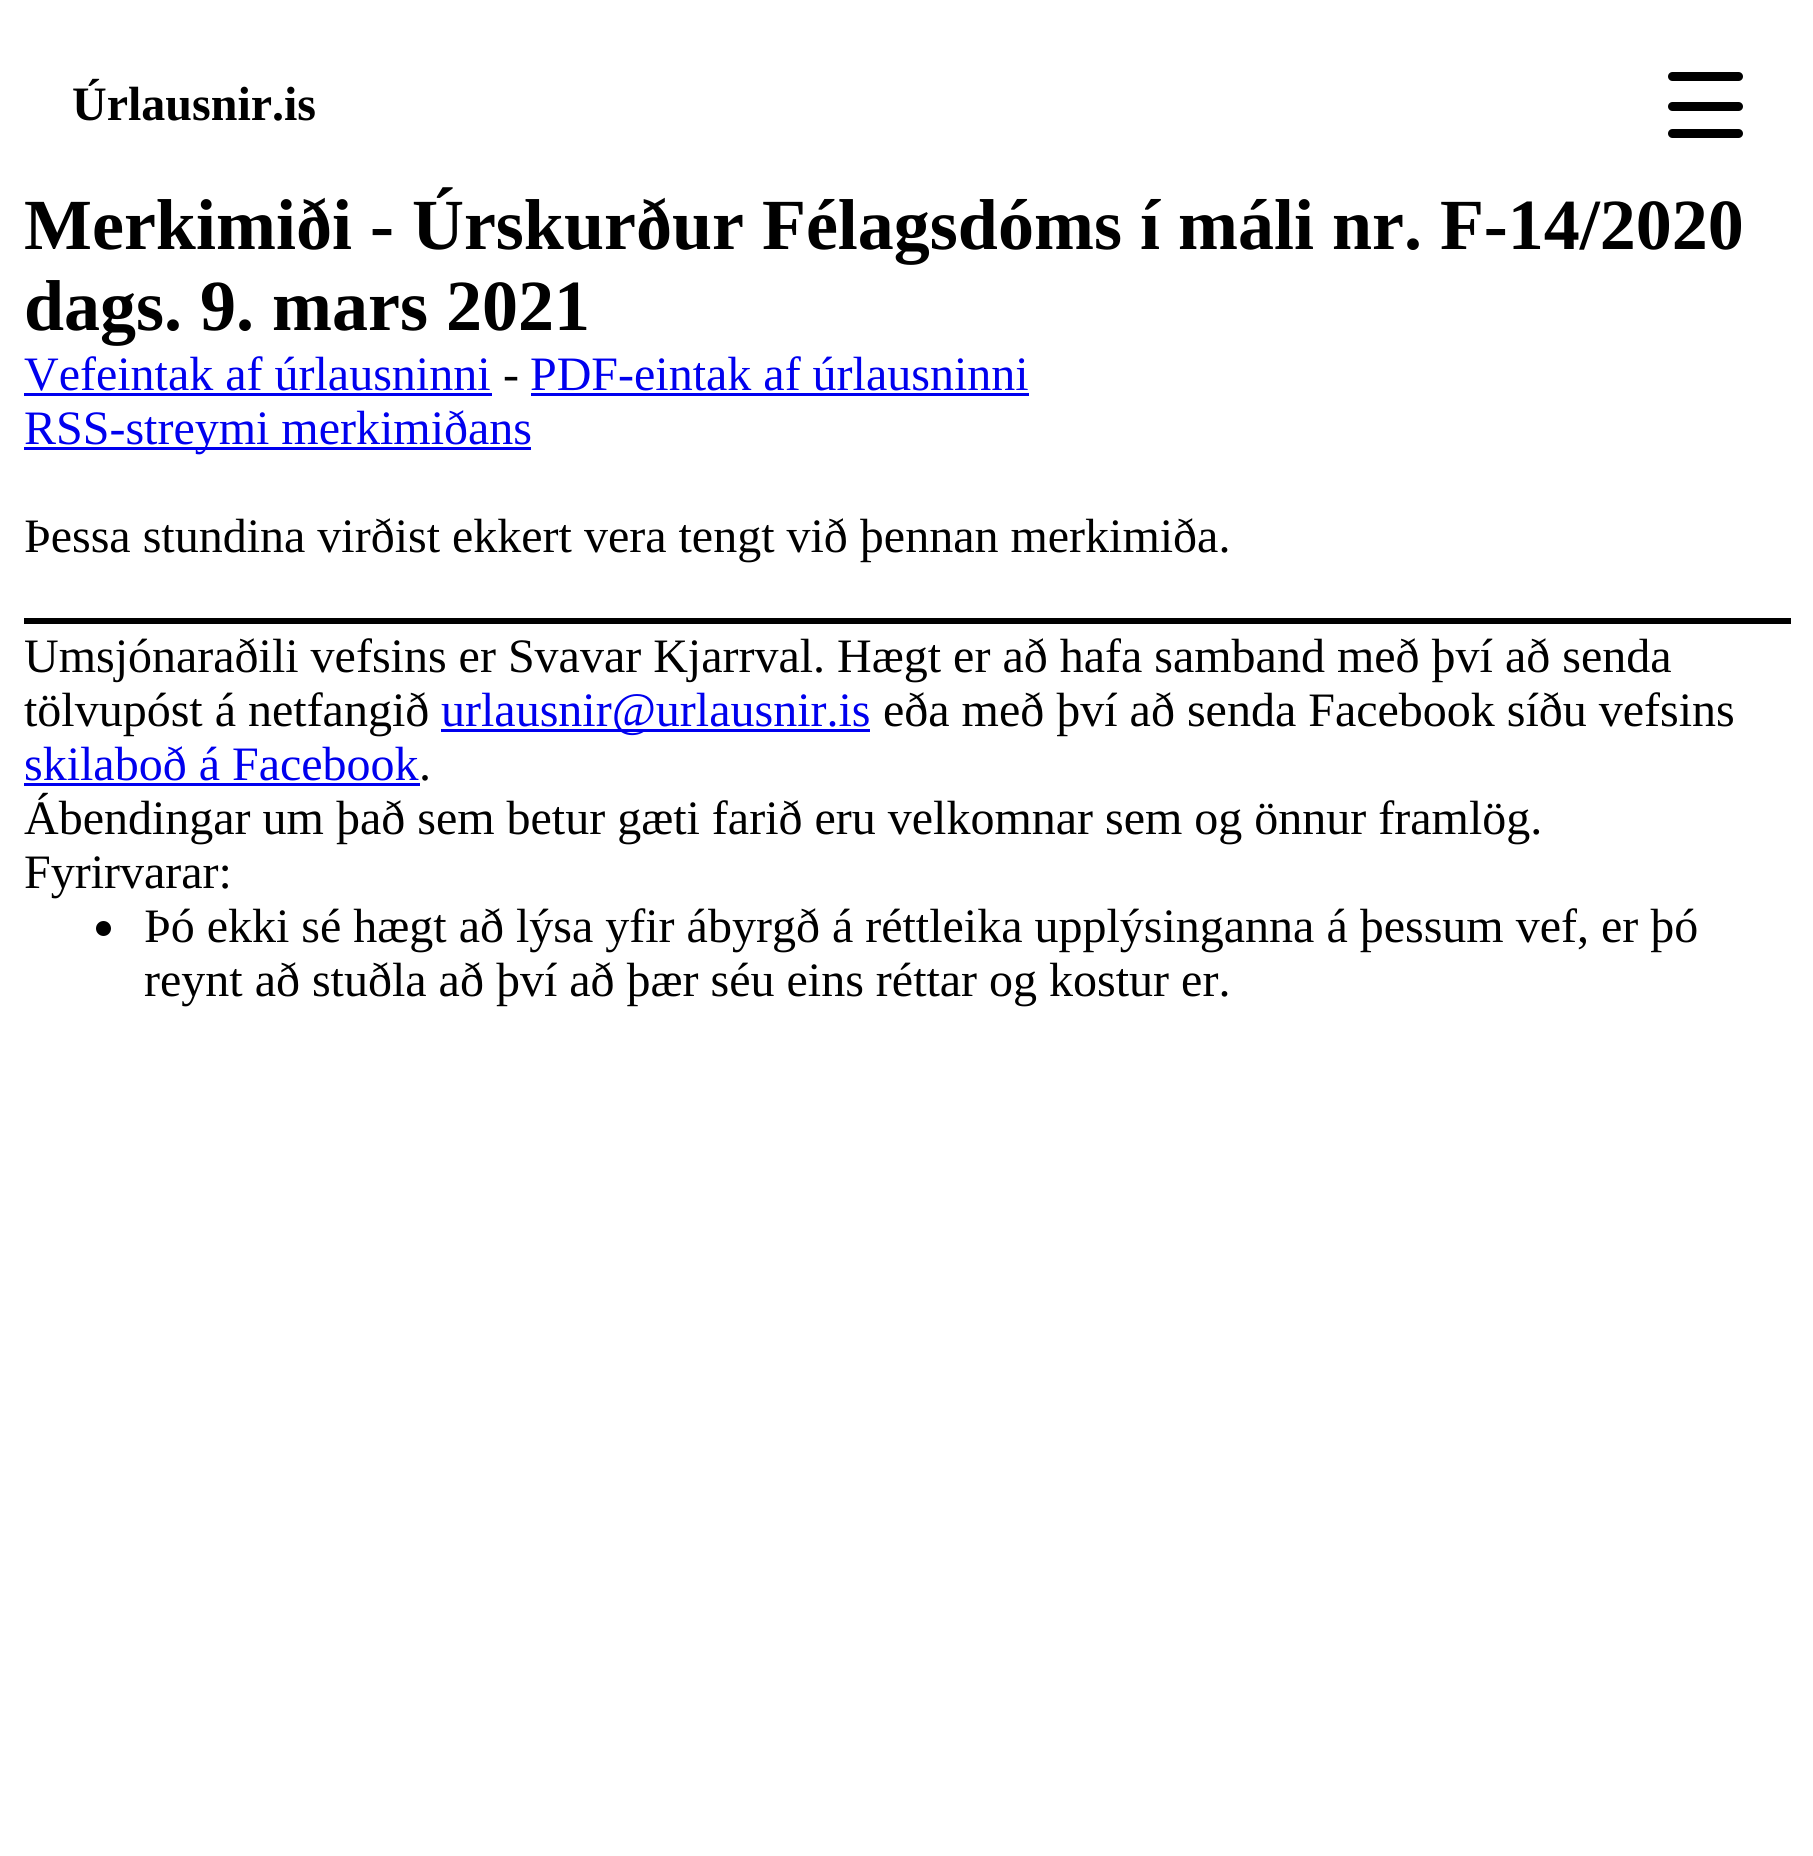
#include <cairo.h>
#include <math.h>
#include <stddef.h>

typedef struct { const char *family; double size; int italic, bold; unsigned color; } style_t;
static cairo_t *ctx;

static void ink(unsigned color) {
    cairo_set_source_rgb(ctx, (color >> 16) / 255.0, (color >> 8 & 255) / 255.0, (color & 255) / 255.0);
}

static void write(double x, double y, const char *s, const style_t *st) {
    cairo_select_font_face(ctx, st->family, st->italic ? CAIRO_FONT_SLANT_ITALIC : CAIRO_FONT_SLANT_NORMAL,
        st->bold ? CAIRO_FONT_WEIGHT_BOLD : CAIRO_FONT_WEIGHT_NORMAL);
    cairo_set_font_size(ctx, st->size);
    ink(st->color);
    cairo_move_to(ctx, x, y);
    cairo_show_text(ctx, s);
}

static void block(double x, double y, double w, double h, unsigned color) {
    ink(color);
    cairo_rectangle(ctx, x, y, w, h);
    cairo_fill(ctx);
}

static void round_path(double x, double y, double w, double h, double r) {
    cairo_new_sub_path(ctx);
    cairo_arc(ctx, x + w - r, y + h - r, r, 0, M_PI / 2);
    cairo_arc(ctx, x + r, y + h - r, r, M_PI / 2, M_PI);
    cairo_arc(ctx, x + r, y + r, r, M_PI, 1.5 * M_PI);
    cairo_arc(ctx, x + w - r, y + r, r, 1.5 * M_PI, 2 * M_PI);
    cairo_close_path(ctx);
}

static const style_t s1 = {"Liberation Serif", 48, 0, 1, 0x000000};
static const style_t s2 = {"Liberation Serif", 72, 0, 1, 0x000000};
static const style_t s3 = {"Liberation Serif", 48, 0, 0, 0x0000ee};
static const style_t s4 = {"Liberation Serif", 48, 0, 0, 0x000000};

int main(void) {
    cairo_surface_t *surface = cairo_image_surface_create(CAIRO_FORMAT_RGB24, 1813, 1856);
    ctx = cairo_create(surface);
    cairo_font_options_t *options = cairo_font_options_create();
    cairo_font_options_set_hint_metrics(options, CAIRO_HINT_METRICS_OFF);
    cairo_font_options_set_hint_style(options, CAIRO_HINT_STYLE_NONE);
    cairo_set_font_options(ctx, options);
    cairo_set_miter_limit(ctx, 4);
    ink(0xffffff);
    cairo_paint(ctx);
    write(72, 120, "Úrlausnir.is", &s1);
    round_path(1668, 72, 75, 9, 4.5);
    cairo_fill(ctx);
    round_path(1668, 102, 75, 9, 4.5);
    cairo_fill(ctx);
    round_path(1668, 129, 75, 9, 4.5);
    cairo_fill(ctx);
    write(24, 249, "Merkimiði - Úrskurður Félagsdóms í máli nr. F-14/2020", &s2);
    write(24, 330, "dags. 9. mars 2021", &s2);
    write(24, 390, "Vefeintak af úrlausninni", &s3);
    block(24, 393, 468, 3, 0x0000ee);
    write(503, 390, "-", &s4);
    write(530, 390, "PDF-eintak af úrlausninni", &s3);
    block(531, 393, 498, 3, 0x0000ee);
    block(24, 447, 507, 3, 0x0000ee);
    write(24, 444, "RSS-streymi merkimiðans", &s3);
    write(24, 552, "Þessa stundina virðist ekkert vera tengt við þennan merkimiða.", &s4);
    block(24, 618, 1767, 6, 0x000000);
    write(24, 672, "Umsjónaraðili vefsins er Svavar Kjarrval. Hægt er að hafa samband með því að senda", &s4);
    write(24, 726, "tölvupóst á netfangið", &s4);
    block(441, 729, 429, 3, 0x0000ee);
    write(441, 726, "urlausnir@urlausnir.is", &s3);
    write(883, 726, "eða með því að senda Facebook síðu vefsins", &s4);
    write(24, 780, "skilaboð á Facebook", &s3);
    block(24, 783, 396, 3, 0x0000ee);
    write(419, 780, ".", &s4);
    write(24, 834, "Ábendingar um það sem betur gæti farið eru velkomnar sem og önnur framlög.", &s4);
    write(24, 888, "Fyrirvarar:", &s4);
    cairo_new_path(ctx);
    cairo_arc(ctx, 103.5, 928.5, 7.5, 0, 2 * M_PI);
    cairo_fill(ctx);
    write(144, 942, "Þó ekki sé hægt að lýsa yfir ábyrgð á réttleika upplýsinganna á þessum vef, er þó", &s4);
    write(144, 996, "reynt að stuðla að því að þær séu eins réttar og kostur er.", &s4);
    cairo_surface_write_to_png(surface, "screenshot.png");
    cairo_font_options_destroy(options);
    cairo_destroy(ctx);
    cairo_surface_destroy(surface);
    return 0;
}
